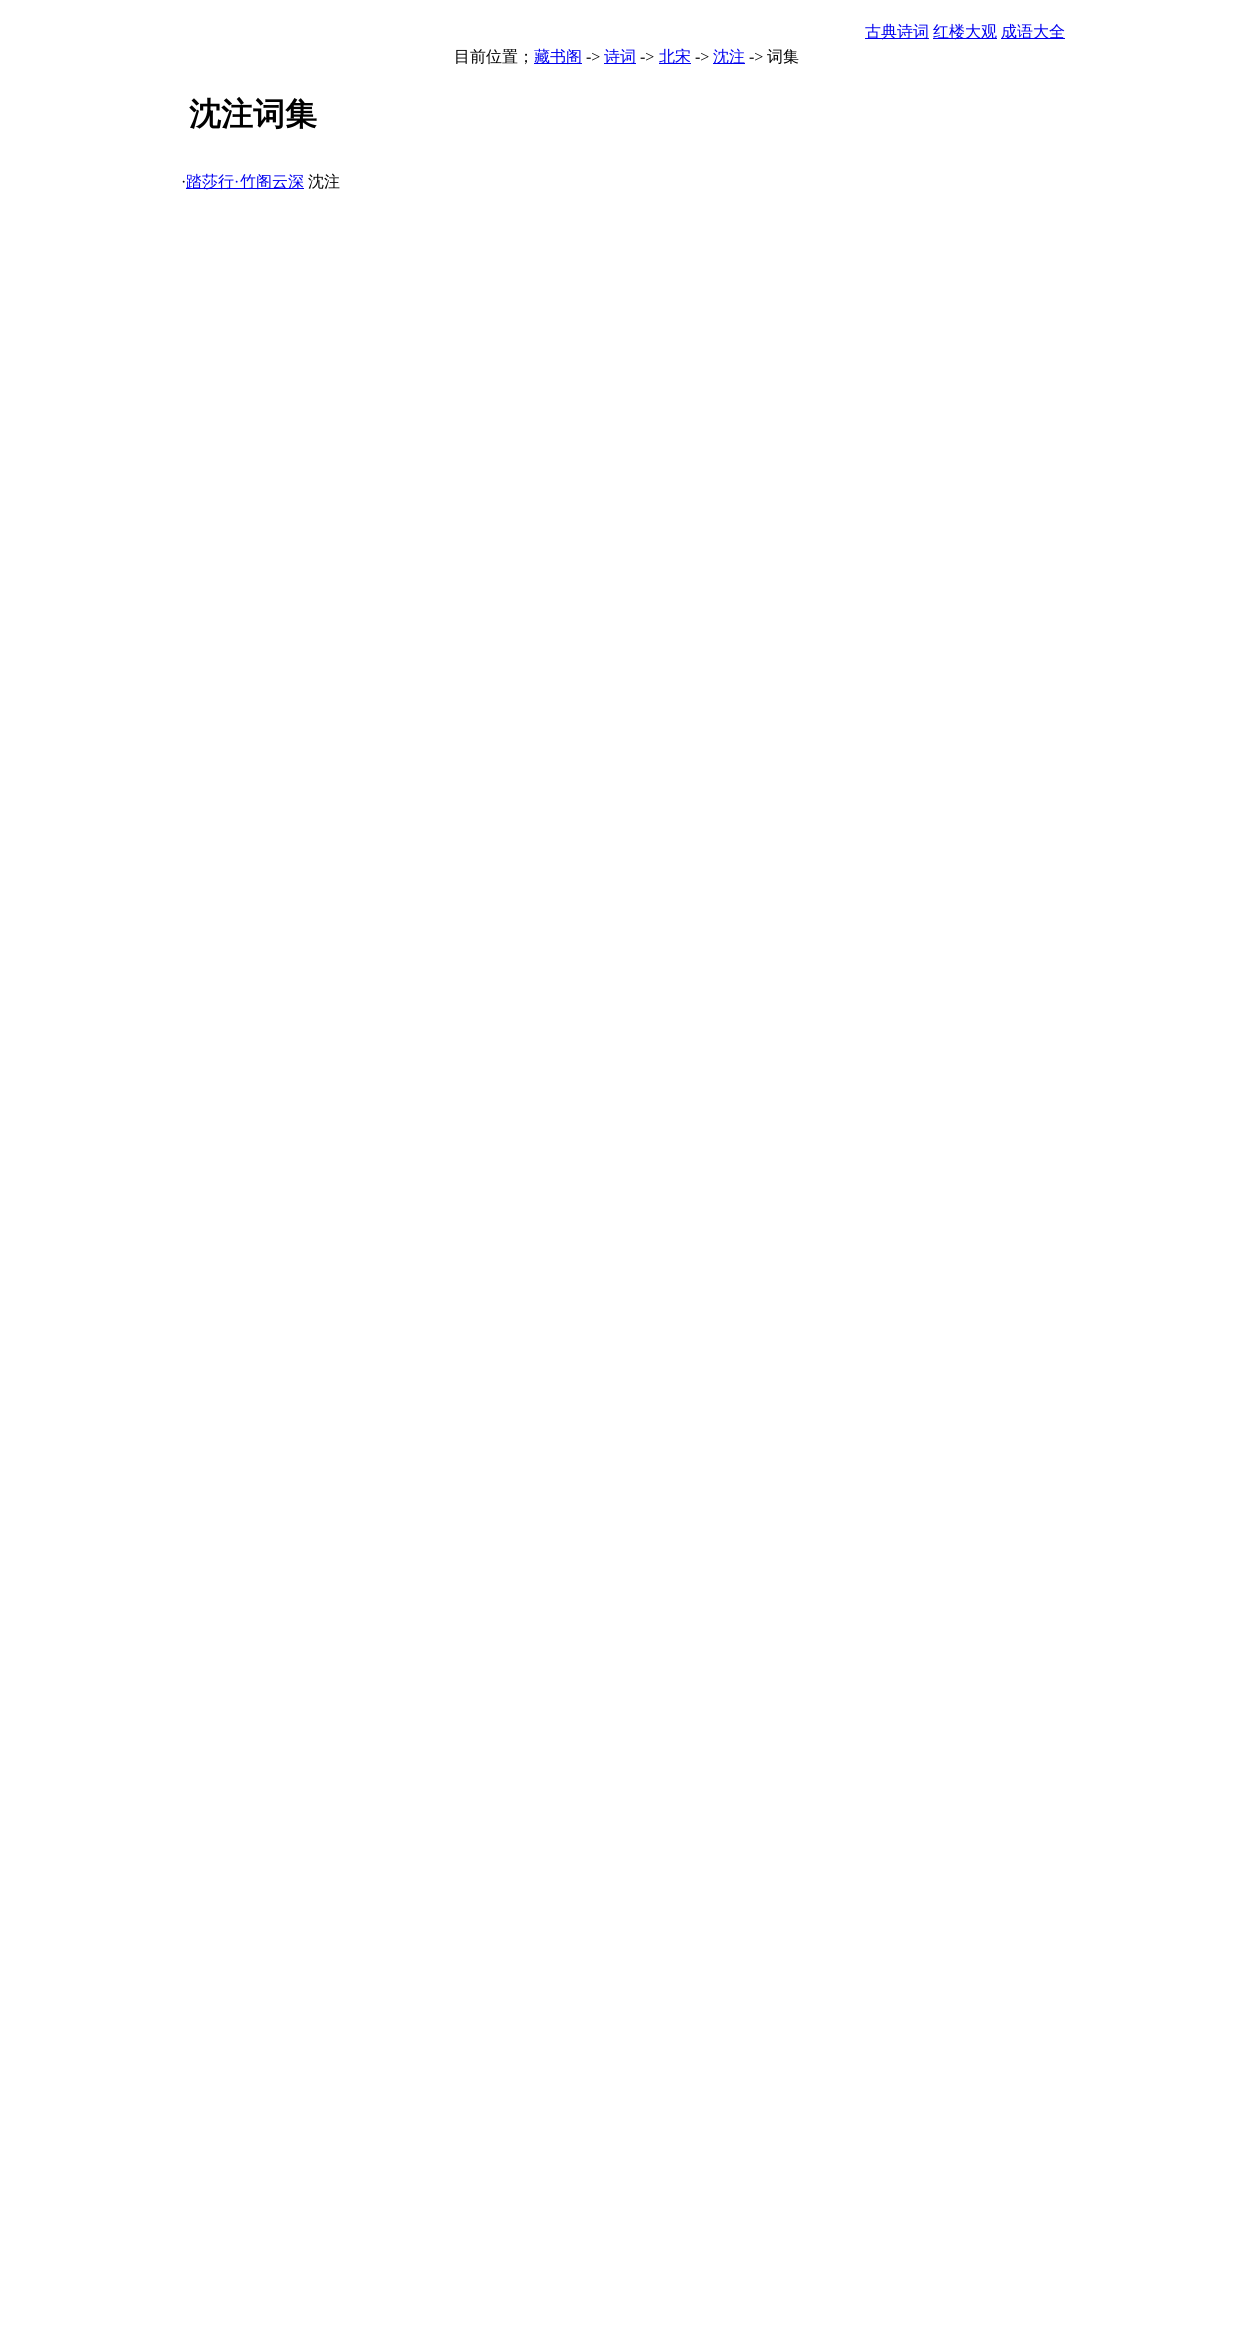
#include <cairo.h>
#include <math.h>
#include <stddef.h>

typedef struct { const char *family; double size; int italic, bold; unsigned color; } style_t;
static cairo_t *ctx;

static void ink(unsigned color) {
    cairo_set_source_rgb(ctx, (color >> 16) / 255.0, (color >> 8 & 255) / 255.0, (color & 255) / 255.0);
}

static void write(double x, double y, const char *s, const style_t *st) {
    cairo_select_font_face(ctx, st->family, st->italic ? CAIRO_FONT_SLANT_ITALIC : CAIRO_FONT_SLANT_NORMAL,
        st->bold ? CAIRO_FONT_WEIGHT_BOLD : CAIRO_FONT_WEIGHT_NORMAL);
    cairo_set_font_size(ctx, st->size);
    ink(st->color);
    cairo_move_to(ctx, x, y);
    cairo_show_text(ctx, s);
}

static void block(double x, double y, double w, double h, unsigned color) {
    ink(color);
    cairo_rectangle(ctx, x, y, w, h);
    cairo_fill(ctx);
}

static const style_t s1 = {"WenQuanYi Zen Hei Medium", 16, 0, 0, 0x0000ee};
static const style_t s2 = {"WenQuanYi Zen Hei Medium", 16, 0, 0, 0x000000};
static const style_t s3 = {"Liberation Serif", 16, 0, 0, 0x000000};
static const style_t s4 = {"WenQuanYi Zen Hei", 32, 0, 1, 0x000000};
static const style_t s5 = {"Liberation Serif", 16, 0, 0, 0x0000ee};

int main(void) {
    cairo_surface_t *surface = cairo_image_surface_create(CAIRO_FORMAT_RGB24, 1255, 2329);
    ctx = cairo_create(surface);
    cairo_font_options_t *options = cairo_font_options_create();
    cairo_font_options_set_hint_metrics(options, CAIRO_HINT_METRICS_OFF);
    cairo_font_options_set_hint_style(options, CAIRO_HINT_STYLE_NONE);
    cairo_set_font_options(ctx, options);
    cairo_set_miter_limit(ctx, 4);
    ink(0xffffff);
    cairo_paint(ctx);
    block(865, 38, 64, 1, 0x0000ee);
    write(865, 37, "古典诗词", &s1);
    block(933, 38, 64, 1, 0x0000ee);
    write(933, 37, "红楼大观", &s1);
    block(1001, 38, 64, 1, 0x0000ee);
    write(1001, 37, "成语大全", &s1);
    write(454, 62, "目前位置；", &s2);
    block(534, 63, 48, 1, 0x0000ee);
    write(534, 62, "藏书阁", &s1);
    write(586, 62, "->", &s3);
    block(604, 63, 32, 1, 0x0000ee);
    write(604, 62, "诗词", &s1);
    write(640, 62, "->", &s3);
    block(659, 63, 32, 1, 0x0000ee);
    write(659, 62, "北宋", &s1);
    write(695, 62, "->", &s3);
    block(713, 63, 32, 1, 0x0000ee);
    write(713, 62, "沈注", &s1);
    write(749, 62, "->", &s3);
    write(767, 62, "词集", &s2);
    write(189, 125, "沈注词集", &s4);
    write(181, 187, "·", &s3);
    block(186, 188, 118, 1, 0x0000ee);
    write(186, 187, "踏莎行", &s1);
    write(234, 187, "·", &s5);
    write(240, 187, "竹阁云深", &s1);
    write(308, 187, "沈注", &s2);
    cairo_surface_write_to_png(surface, "screenshot.png");
    cairo_font_options_destroy(options);
    cairo_destroy(ctx);
    cairo_surface_destroy(surface);
    return 0;
}
